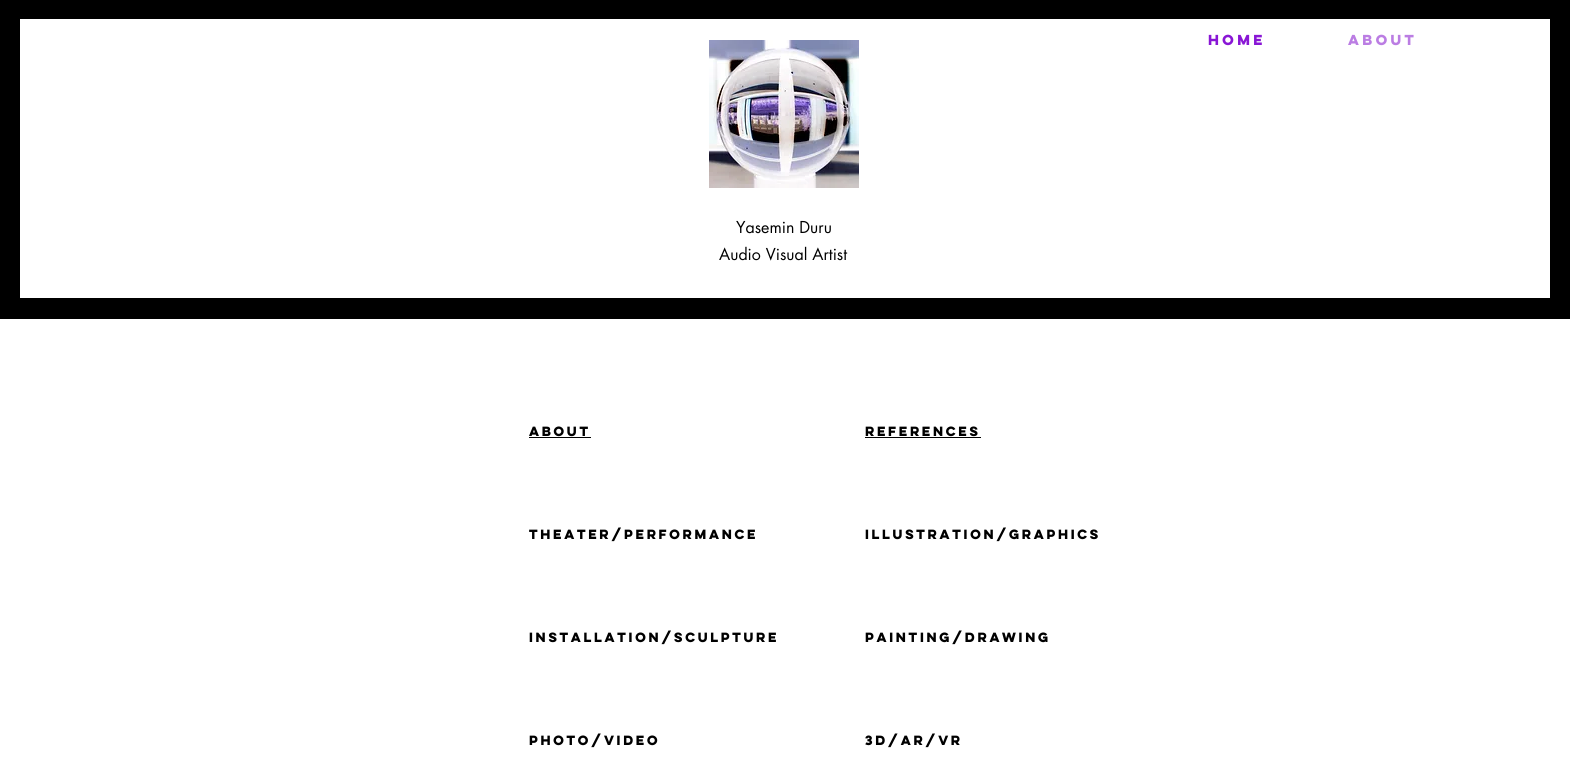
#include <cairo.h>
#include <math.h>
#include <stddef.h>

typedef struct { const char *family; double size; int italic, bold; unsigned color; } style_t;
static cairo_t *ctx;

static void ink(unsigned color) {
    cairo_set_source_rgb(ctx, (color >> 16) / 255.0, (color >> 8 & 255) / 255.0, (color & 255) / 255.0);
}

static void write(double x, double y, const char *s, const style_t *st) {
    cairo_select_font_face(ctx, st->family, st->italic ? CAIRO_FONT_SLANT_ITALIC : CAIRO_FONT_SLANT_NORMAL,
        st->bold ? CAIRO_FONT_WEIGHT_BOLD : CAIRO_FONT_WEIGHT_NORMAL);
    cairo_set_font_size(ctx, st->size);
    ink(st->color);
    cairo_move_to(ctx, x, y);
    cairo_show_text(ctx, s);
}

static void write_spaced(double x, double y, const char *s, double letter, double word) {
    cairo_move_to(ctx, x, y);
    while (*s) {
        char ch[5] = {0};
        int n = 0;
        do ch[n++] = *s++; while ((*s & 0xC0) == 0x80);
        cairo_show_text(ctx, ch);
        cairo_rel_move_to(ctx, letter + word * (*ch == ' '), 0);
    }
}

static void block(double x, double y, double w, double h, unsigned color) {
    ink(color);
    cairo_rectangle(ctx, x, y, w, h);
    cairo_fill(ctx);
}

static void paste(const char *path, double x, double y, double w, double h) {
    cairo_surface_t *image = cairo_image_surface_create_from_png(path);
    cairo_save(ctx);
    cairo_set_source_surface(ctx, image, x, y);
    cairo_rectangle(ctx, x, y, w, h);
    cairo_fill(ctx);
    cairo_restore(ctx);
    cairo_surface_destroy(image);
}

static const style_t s1 = {"futura", 16, 0, 0, 0x000000};
static const style_t s2 = {"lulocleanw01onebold", 12, 0, 1, 0x000000};

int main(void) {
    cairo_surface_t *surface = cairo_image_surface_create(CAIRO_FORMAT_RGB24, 1570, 777);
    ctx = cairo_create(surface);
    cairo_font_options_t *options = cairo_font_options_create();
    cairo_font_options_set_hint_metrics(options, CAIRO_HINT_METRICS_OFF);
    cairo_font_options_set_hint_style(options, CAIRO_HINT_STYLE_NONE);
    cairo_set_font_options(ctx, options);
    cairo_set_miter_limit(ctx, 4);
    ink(0x000000);
    cairo_paint(ctx);
    block(20, 19, 1530, 279, 0xffffff);
    cairo_select_font_face(ctx, "lulocleanw01onebold", CAIRO_FONT_SLANT_NORMAL, CAIRO_FONT_WEIGHT_BOLD);
    cairo_set_font_size(ctx, 13);
    ink(0x8916d5);
    write_spaced(1208, 45, "HOME", 0.5, 0);
    ink(0xbb7de3);
    write_spaced(1348, 45, "ABOUT", 0.5, 0);
    paste("pic1.png", 709, 40, 150, 148);
    write(736, 233, "Yasemin Duru", &s1);
    write(719, 260, "Audio Visual Artist", &s1);
    block(0, 319, 1570, 458, 0xffffff);
    write(529, 436, "About", &s2);
    block(529, 437, 62, 1, 0x000000);
    write(529, 539, "theater/performance", &s2);
    write(529, 642, "installation/sculpture", &s2);
    write(529, 745, "photo/video", &s2);
    write(865, 436, "References", &s2);
    block(865, 437, 116, 1, 0x000000);
    write(865, 539, "illustration/Graphics", &s2);
    write(865, 642, "painting/drawing", &s2);
    write(865, 745, "3D/AR/VR", &s2);
    cairo_surface_write_to_png(surface, "screenshot.png");
    cairo_font_options_destroy(options);
    cairo_destroy(ctx);
    cairo_surface_destroy(surface);
    return 0;
}
